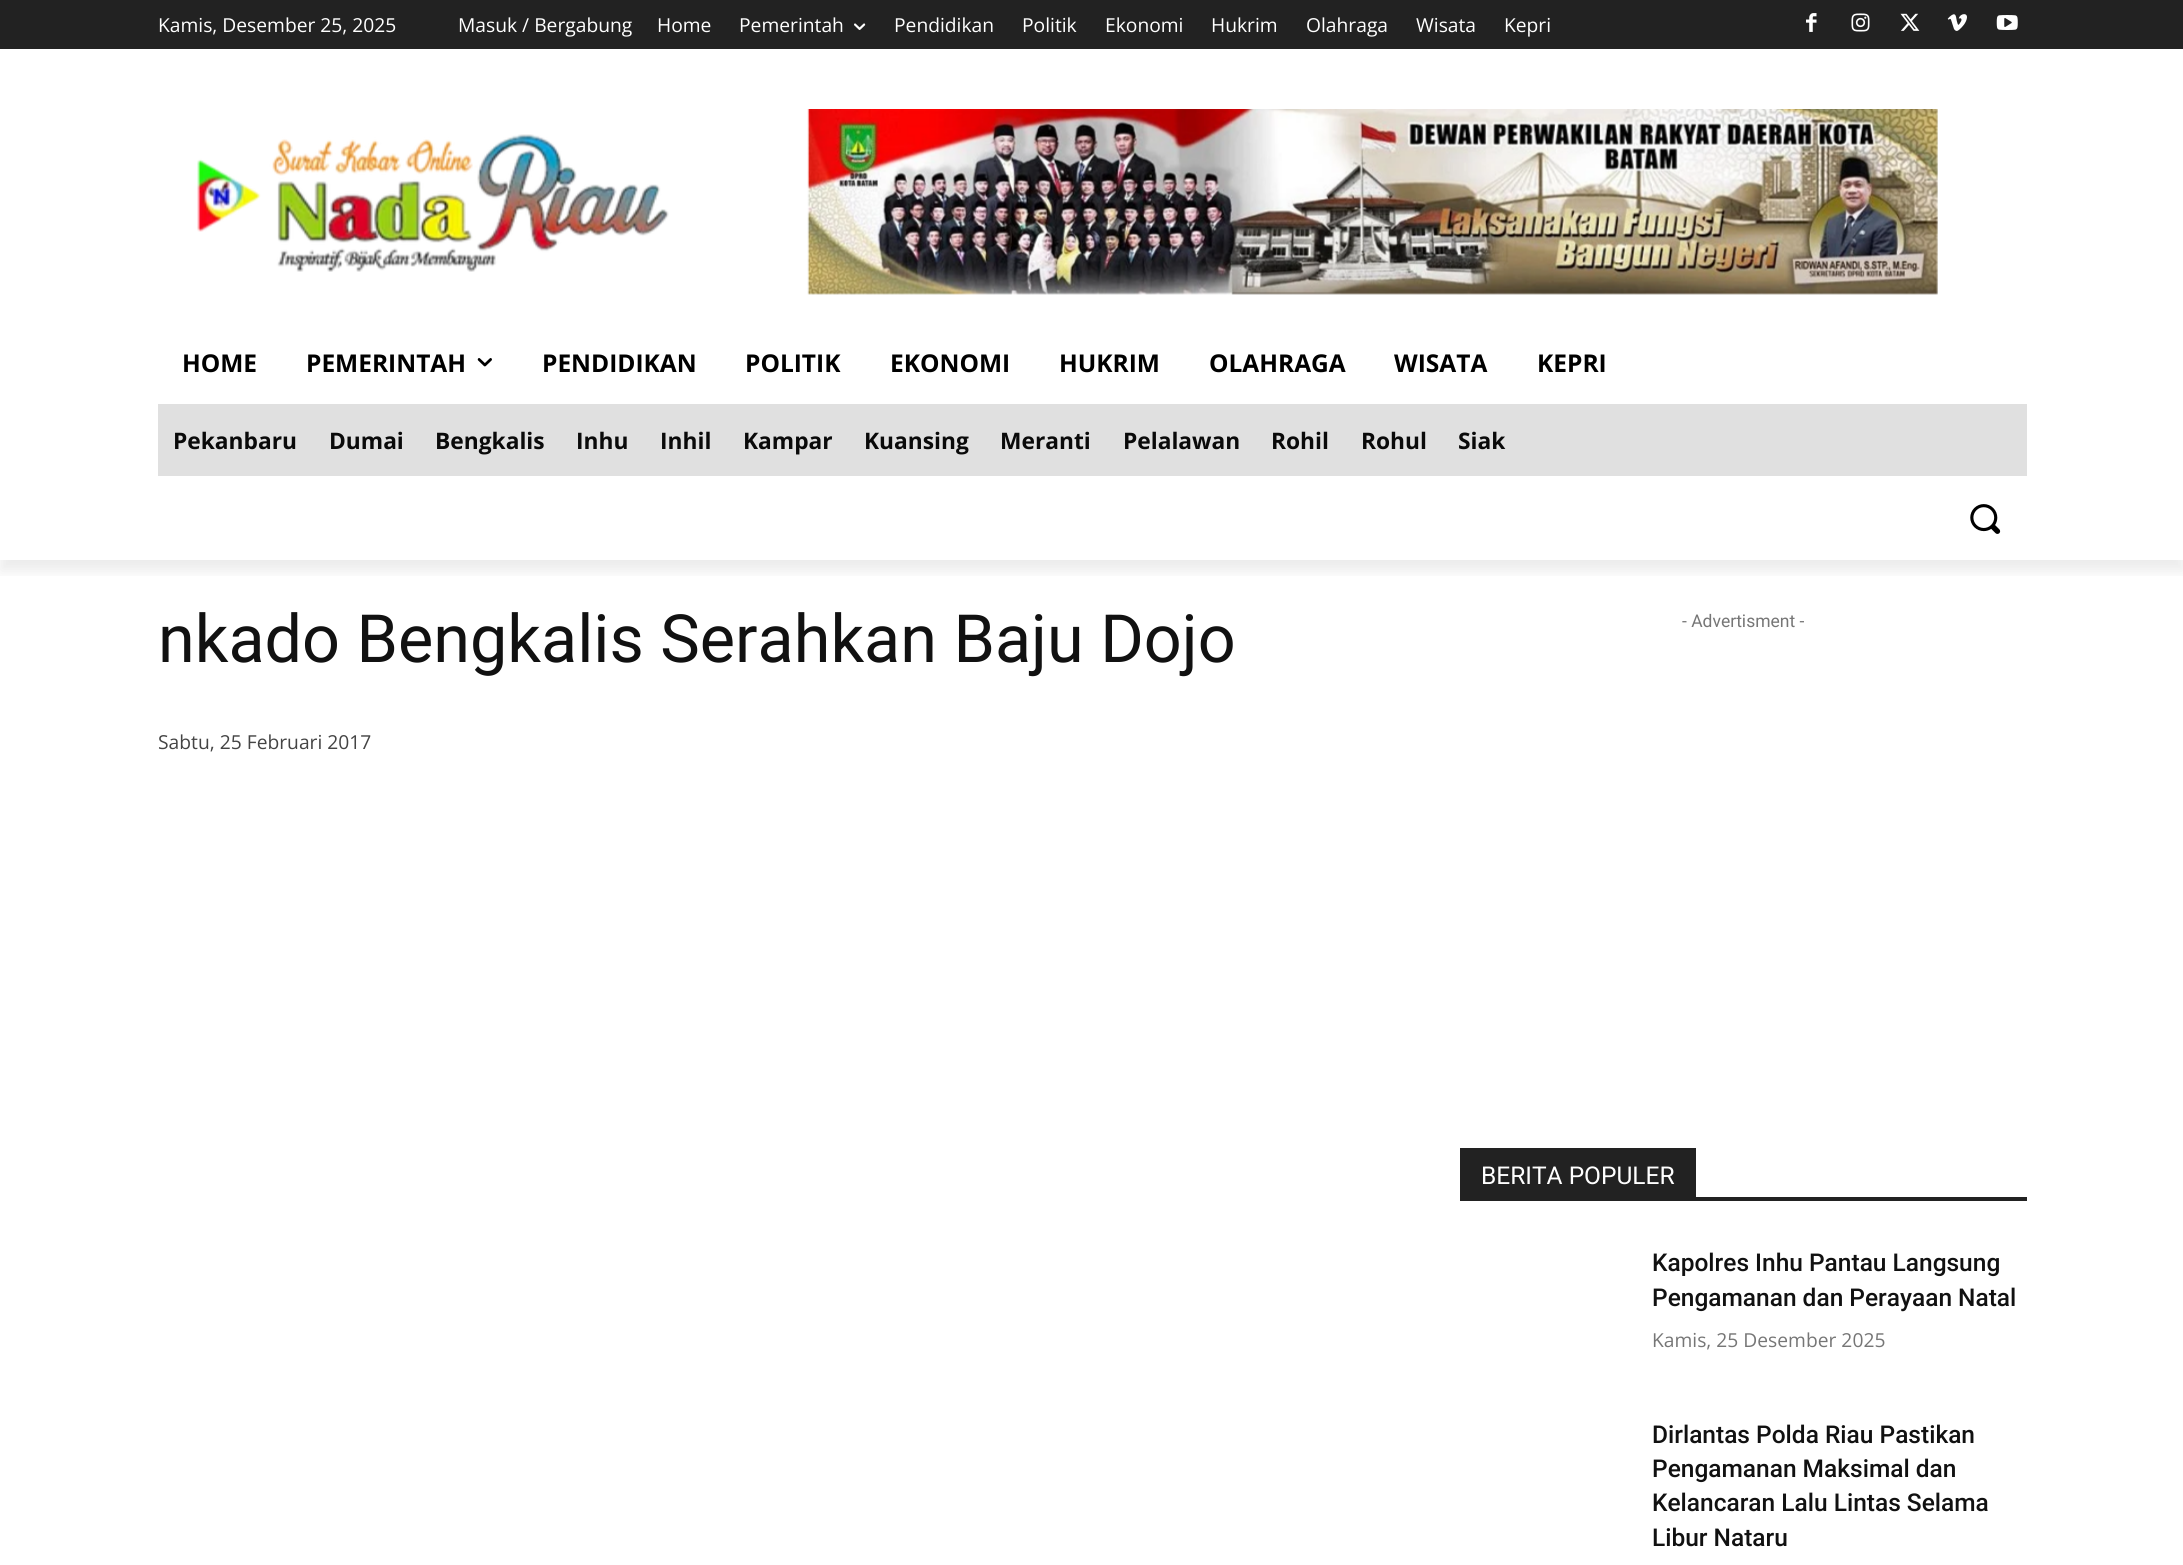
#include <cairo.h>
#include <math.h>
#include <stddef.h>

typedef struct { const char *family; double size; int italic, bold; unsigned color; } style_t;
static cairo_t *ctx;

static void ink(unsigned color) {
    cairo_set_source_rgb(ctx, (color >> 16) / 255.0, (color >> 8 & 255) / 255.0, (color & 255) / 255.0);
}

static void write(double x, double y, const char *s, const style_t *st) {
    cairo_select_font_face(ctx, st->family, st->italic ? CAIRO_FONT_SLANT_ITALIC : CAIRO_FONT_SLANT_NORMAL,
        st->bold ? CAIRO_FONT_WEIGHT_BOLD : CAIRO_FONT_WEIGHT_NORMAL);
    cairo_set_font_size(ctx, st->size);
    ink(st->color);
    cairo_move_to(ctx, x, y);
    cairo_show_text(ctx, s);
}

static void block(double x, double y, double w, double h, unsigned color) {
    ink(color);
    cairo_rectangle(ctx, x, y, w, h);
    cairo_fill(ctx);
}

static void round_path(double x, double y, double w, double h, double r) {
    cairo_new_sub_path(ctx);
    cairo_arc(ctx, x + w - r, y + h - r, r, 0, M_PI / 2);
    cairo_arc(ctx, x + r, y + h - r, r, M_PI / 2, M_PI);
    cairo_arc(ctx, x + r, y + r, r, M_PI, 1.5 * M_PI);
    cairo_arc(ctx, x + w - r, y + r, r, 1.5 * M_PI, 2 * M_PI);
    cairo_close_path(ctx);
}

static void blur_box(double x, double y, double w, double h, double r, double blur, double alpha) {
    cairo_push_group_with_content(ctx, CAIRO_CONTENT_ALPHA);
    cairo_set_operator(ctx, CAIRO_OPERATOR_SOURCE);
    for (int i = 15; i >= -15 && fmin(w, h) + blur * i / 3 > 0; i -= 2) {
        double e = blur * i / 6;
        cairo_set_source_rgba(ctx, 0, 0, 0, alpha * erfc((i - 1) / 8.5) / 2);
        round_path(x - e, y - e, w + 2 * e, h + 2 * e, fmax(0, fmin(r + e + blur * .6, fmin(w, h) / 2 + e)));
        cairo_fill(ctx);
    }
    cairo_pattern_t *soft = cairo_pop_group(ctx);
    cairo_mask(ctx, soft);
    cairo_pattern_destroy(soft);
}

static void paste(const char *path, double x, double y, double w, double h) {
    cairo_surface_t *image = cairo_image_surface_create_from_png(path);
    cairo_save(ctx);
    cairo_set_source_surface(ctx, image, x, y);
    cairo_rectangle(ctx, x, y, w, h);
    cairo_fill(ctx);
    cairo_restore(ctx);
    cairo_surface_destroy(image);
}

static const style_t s1 = {"Open Sans", 19.25, 0, 0, 0xffffff};
static const style_t s2 = {"Open Sans", 24.5, 0, 1, 0x000000};
static const style_t s3 = {"Open Sans", 22.75, 0, 1, 0x0a0a0a};
static const style_t s4 = {"Roboto", 66.5, 0, 0, 0x111111};
static const style_t s5 = {"Open Sans", 19.25, 0, 0, 0x444444};
static const style_t s6 = {"Roboto", 17.5, 0, 0, 0x767676};
static const style_t s7 = {"Roboto", 24.5, 0, 0, 0xffffff};
static const style_t s8 = {"Roboto Medium", 24.5, 0, 0, 0x111111};
static const style_t s9 = {"Open Sans", 19.25, 0, 0, 0x767676};

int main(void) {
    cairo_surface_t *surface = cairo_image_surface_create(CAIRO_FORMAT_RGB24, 2183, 1565);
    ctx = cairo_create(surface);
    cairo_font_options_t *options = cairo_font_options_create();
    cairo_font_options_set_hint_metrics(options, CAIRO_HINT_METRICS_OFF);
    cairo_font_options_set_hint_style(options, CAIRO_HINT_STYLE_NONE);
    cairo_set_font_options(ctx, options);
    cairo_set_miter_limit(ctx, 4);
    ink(0xffffff);
    cairo_paint(ctx);
    block(0, 0, 2183, 49, 0x222222);
    paste("pic2.png", 1806, 13, 11, 19);
    paste("pic3.png", 1851, 13, 19, 19);
    paste("pic4.png", 1900, 13, 20, 18);
    paste("pic5.png", 1947, 14, 20, 17);
    paste("pic6.png", 1996, 15, 22, 15);
    paste("pic7.png", 197, 134, 472, 138);
    paste("pic8.png", 807, 109, 1131, 186);
    cairo_save(ctx);
    cairo_rectangle(ctx, 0, 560, 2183, 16);
    cairo_clip(ctx);
    ink(0x000000);
    blur_box(0, 11, 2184, 560, 0, 7, 0.08);
    cairo_restore(ctx);
    write(158, 32, "Kamis, Desember 25, 2025", &s1);
    write(458, 32, "Masuk / Bergabung", &s1);
    write(657, 32, "Home", &s1);
    write(739, 32, "Pemerintah", &s1);
    paste("pic1.png", 854, 23, 12, 7);
    write(894, 32, "Pendidikan", &s1);
    write(1022, 32, "Politik", &s1);
    write(1105, 32, "Ekonomi", &s1);
    write(1211, 32, "Hukrim", &s1);
    write(1306, 32, "Olahraga", &s1);
    write(1416, 32, "Wisata", &s1);
    write(1504, 32, "Kepri", &s1);
    write(182, 372, "HOME", &s2);
    write(306, 372, "PEMERINTAH", &s2);
    paste("pic9.png", 477, 358, 15, 9);
    write(542, 372, "PENDIDIKAN", &s2);
    write(745, 372, "POLITIK", &s2);
    write(890, 372, "EKONOMI", &s2);
    write(1059, 372, "HUKRIM", &s2);
    write(1209, 372, "OLAHRAGA", &s2);
    write(1394, 372, "WISATA", &s2);
    write(1537, 372, "KEPRI", &s2);
    block(158, 404, 1869, 72, 0xe0e0e0);
    write(173, 449, "Pekanbaru", &s3);
    write(329, 449, "Dumai", &s3);
    write(435, 449, "Bengkalis", &s3);
    write(576, 449, "Inhu", &s3);
    write(660, 449, "Inhil", &s3);
    write(743, 449, "Kampar", &s3);
    write(864, 449, "Kuansing", &s3);
    write(1000, 449, "Meranti", &s3);
    write(1123, 449, "Pelalawan", &s3);
    write(1271, 449, "Rohil", &s3);
    write(1361, 449, "Rohul", &s3);
    write(1458, 449, "Siak", &s3);
    paste("pic10.png", 1970, 504, 31, 30);
    write(158, 662, "nkado Bengkalis Serahkan Baju Dojo", &s4);
    write(158, 749, "Sabtu, 25 Februari 2017", &s5);
    write(1682, 627, "- Advertisment -", &s6);
    block(1460, 1197, 567, 4, 0x222222);
    block(1460, 1148, 236, 49, 0x222222);
    write(1481, 1184, "BERITA POPULER", &s7);
    write(1652, 1271, "Kapolres Inhu Pantau Langsung", &s8);
    write(1652, 1306, "Pengamanan dan Perayaan Natal", &s8);
    write(1652, 1347, "Kamis, 25 Desember 2025", &s9);
    write(1652, 1443, "Dirlantas Polda Riau Pastikan", &s8);
    write(1652, 1477, "Pengamanan Maksimal dan", &s8);
    write(1652, 1511, "Kelancaran Lalu Lintas Selama", &s8);
    write(1652, 1546, "Libur Nataru", &s8);
    cairo_surface_write_to_png(surface, "screenshot.png");
    cairo_font_options_destroy(options);
    cairo_destroy(ctx);
    cairo_surface_destroy(surface);
    return 0;
}
